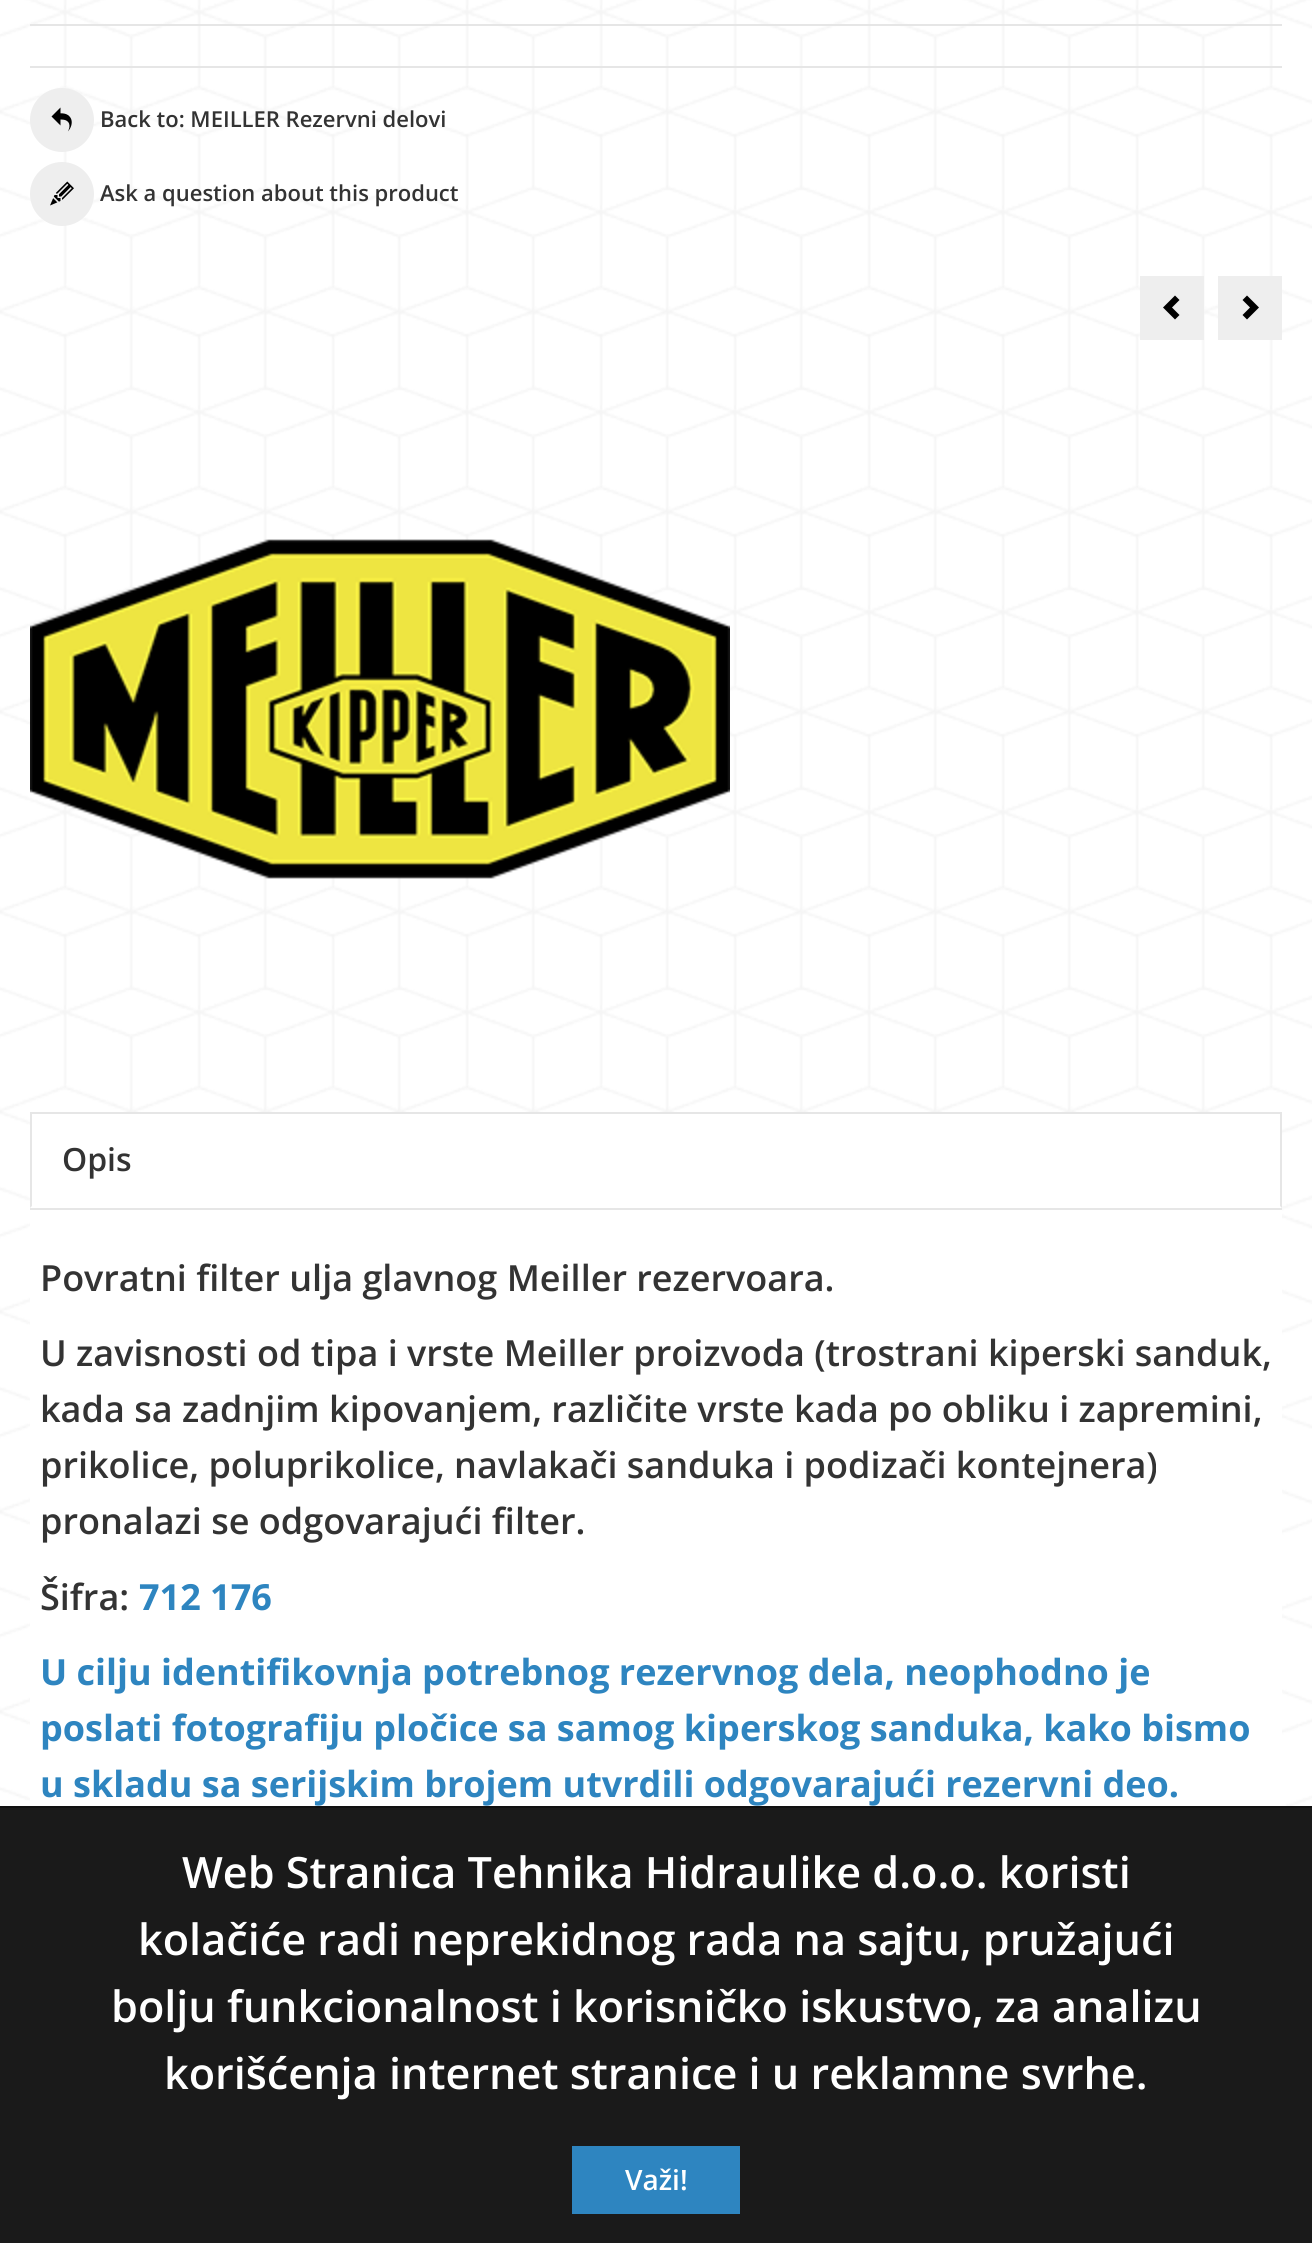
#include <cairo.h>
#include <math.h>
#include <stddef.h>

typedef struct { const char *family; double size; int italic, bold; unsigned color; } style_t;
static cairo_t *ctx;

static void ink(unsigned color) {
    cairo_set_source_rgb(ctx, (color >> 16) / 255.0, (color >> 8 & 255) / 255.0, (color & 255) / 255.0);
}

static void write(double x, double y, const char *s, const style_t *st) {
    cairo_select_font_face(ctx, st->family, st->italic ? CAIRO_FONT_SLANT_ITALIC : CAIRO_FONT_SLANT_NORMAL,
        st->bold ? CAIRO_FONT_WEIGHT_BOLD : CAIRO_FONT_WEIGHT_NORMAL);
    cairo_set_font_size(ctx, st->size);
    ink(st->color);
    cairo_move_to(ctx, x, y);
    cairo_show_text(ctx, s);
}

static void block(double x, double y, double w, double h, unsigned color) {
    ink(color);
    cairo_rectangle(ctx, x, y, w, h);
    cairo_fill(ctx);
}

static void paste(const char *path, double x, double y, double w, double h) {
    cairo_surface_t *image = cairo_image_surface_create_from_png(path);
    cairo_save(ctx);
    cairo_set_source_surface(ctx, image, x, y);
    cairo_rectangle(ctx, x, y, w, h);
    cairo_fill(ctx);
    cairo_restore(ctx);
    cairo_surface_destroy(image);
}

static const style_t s1 = {"Open Sans SemiBold", 22, 0, 0, 0x333333};
static const style_t s2 = {"Open Sans SemiBold", 32, 0, 0, 0x333333};
static const style_t s3 = {"Open Sans SemiBold", 36, 0, 0, 0x333333};
static const style_t s4 = {"Open Sans", 36, 0, 1, 0x2e85c0};
static const style_t s5 = {"Open Sans SemiBold", 43.2, 0, 0, 0xffffff};
static const style_t s6 = {"Open Sans SemiBold", 28, 0, 0, 0xffffff};

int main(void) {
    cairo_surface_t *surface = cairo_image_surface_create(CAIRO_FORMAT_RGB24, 1312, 2243);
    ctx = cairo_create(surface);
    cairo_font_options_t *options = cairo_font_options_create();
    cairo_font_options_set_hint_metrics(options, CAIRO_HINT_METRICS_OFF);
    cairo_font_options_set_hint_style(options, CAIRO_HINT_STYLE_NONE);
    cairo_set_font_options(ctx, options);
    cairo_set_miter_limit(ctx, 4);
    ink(0xffffff);
    cairo_paint(ctx);
    paste("pic1.png", 0, 0, 1312, 1806);
    block(30, 24, 1252, 2, 0xe6e6e6);
    block(30, 66, 1252, 2, 0xe6e6e6);
    ink(0xeeeeee);
    cairo_arc(ctx, 62, 120, 32, 0, 2 * M_PI);
    cairo_fill(ctx);
    paste("pic2.png", 51, 107, 21, 25);
    write(100, 127, "Back to: MEILLER Rezervni delovi", &s1);
    ink(0xeeeeee);
    cairo_new_path(ctx);
    cairo_arc(ctx, 62, 194, 32, 0, 2 * M_PI);
    cairo_fill(ctx);
    paste("pic3.png", 50, 181, 24, 25);
    write(100, 201, "Ask a question about this product", &s1);
    block(1140, 276, 64, 64, 0xeeeeee);
    ink(0x000000);
    cairo_new_path(ctx);
    cairo_move_to(ctx, 1175, 319.5);
    cairo_line_to(ctx, 1179.5, 315);
    cairo_line_to(ctx, 1172, 307.5);
    cairo_line_to(ctx, 1179.5, 300);
    cairo_line_to(ctx, 1175, 295.5);
    cairo_line_to(ctx, 1163, 307.5);
    cairo_close_path(ctx);
    cairo_fill(ctx);
    block(1218, 276, 64, 64, 0xeeeeee);
    ink(0x000000);
    cairo_new_path(ctx);
    cairo_move_to(ctx, 1247, 295.5);
    cairo_line_to(ctx, 1242.5, 300);
    cairo_line_to(ctx, 1250, 307.5);
    cairo_line_to(ctx, 1242.5, 315);
    cairo_line_to(ctx, 1247, 319.5);
    cairo_line_to(ctx, 1259, 307.5);
    cairo_close_path(ctx);
    cairo_fill(ctx);
    paste("pic4.png", 30, 539, 700, 340);
    block(30, 1114, 1252, 94, 0xffffff);
    block(30, 1112, 1252, 2, 0xe6e6e6);
    cairo_new_path(ctx);
    cairo_move_to(ctx, 1282, 1112);
    cairo_line_to(ctx, 1282, 1208);
    cairo_line_to(ctx, 1280, 1206);
    cairo_line_to(ctx, 1280, 1114);
    cairo_close_path(ctx);
    cairo_fill(ctx);
    cairo_new_path(ctx);
    cairo_move_to(ctx, 30, 1208);
    cairo_line_to(ctx, 30, 1112);
    cairo_line_to(ctx, 32, 1114);
    cairo_line_to(ctx, 32, 1206);
    cairo_close_path(ctx);
    cairo_fill(ctx);
    write(62, 1171, "Opis", &s2);
    block(30, 1210, 1252, 596, 0xffffff);
    block(30, 1208, 1252, 2, 0xe6e6e6);
    write(40, 1291, "Povratni filter ulja glavnog Meiller rezervoara.", &s3);
    write(40, 1366, "U zavisnosti od tipa i vrste Meiller proizvoda (trostrani kiperski sanduk,", &s3);
    write(40, 1422, "kada sa zadnjim kipovanjem, različite vrste kada po obliku i zapremini,", &s3);
    write(40, 1478, "prikolice, poluprikolice, navlakači sanduka i podizači kontejnera)", &s3);
    write(40, 1534, "pronalazi se odgovarajući filter.", &s3);
    write(40, 1610, "Šifra:", &s3);
    write(139, 1610, "712 176", &s4);
    write(40, 1685, "U cilju identifikovnja potrebnog rezervnog dela, neophodno je", &s4);
    write(40, 1741, "poslati fotografiju pločice sa samog kiperskog sanduka, kako bismo", &s4);
    write(40, 1797, "u skladu sa serijskim brojem utvrdili odgovarajući rezervni deo.", &s4);
    block(0, 1808, 1312, 435, 0x1a1a1a);
    block(0, 1806, 1312, 2, 0x111111);
    write(182, 1888, "Web Stranica Tehnika Hidraulike d.o.o. koristi", &s5);
    write(138, 1955, "kolačiće radi neprekidnog rada na sajtu, pružajući", &s5);
    write(111, 2022, "bolju funkcionalnost i korisničko iskustvo, za analizu", &s5);
    write(164, 2089, "korišćenja internet stranice i u reklamne svrhe.", &s5);
    block(572, 2146, 168, 68, 0x2e85c0);
    write(625, 2190, "Važi!", &s6);
    cairo_surface_write_to_png(surface, "screenshot.png");
    cairo_font_options_destroy(options);
    cairo_destroy(ctx);
    cairo_surface_destroy(surface);
    return 0;
}
